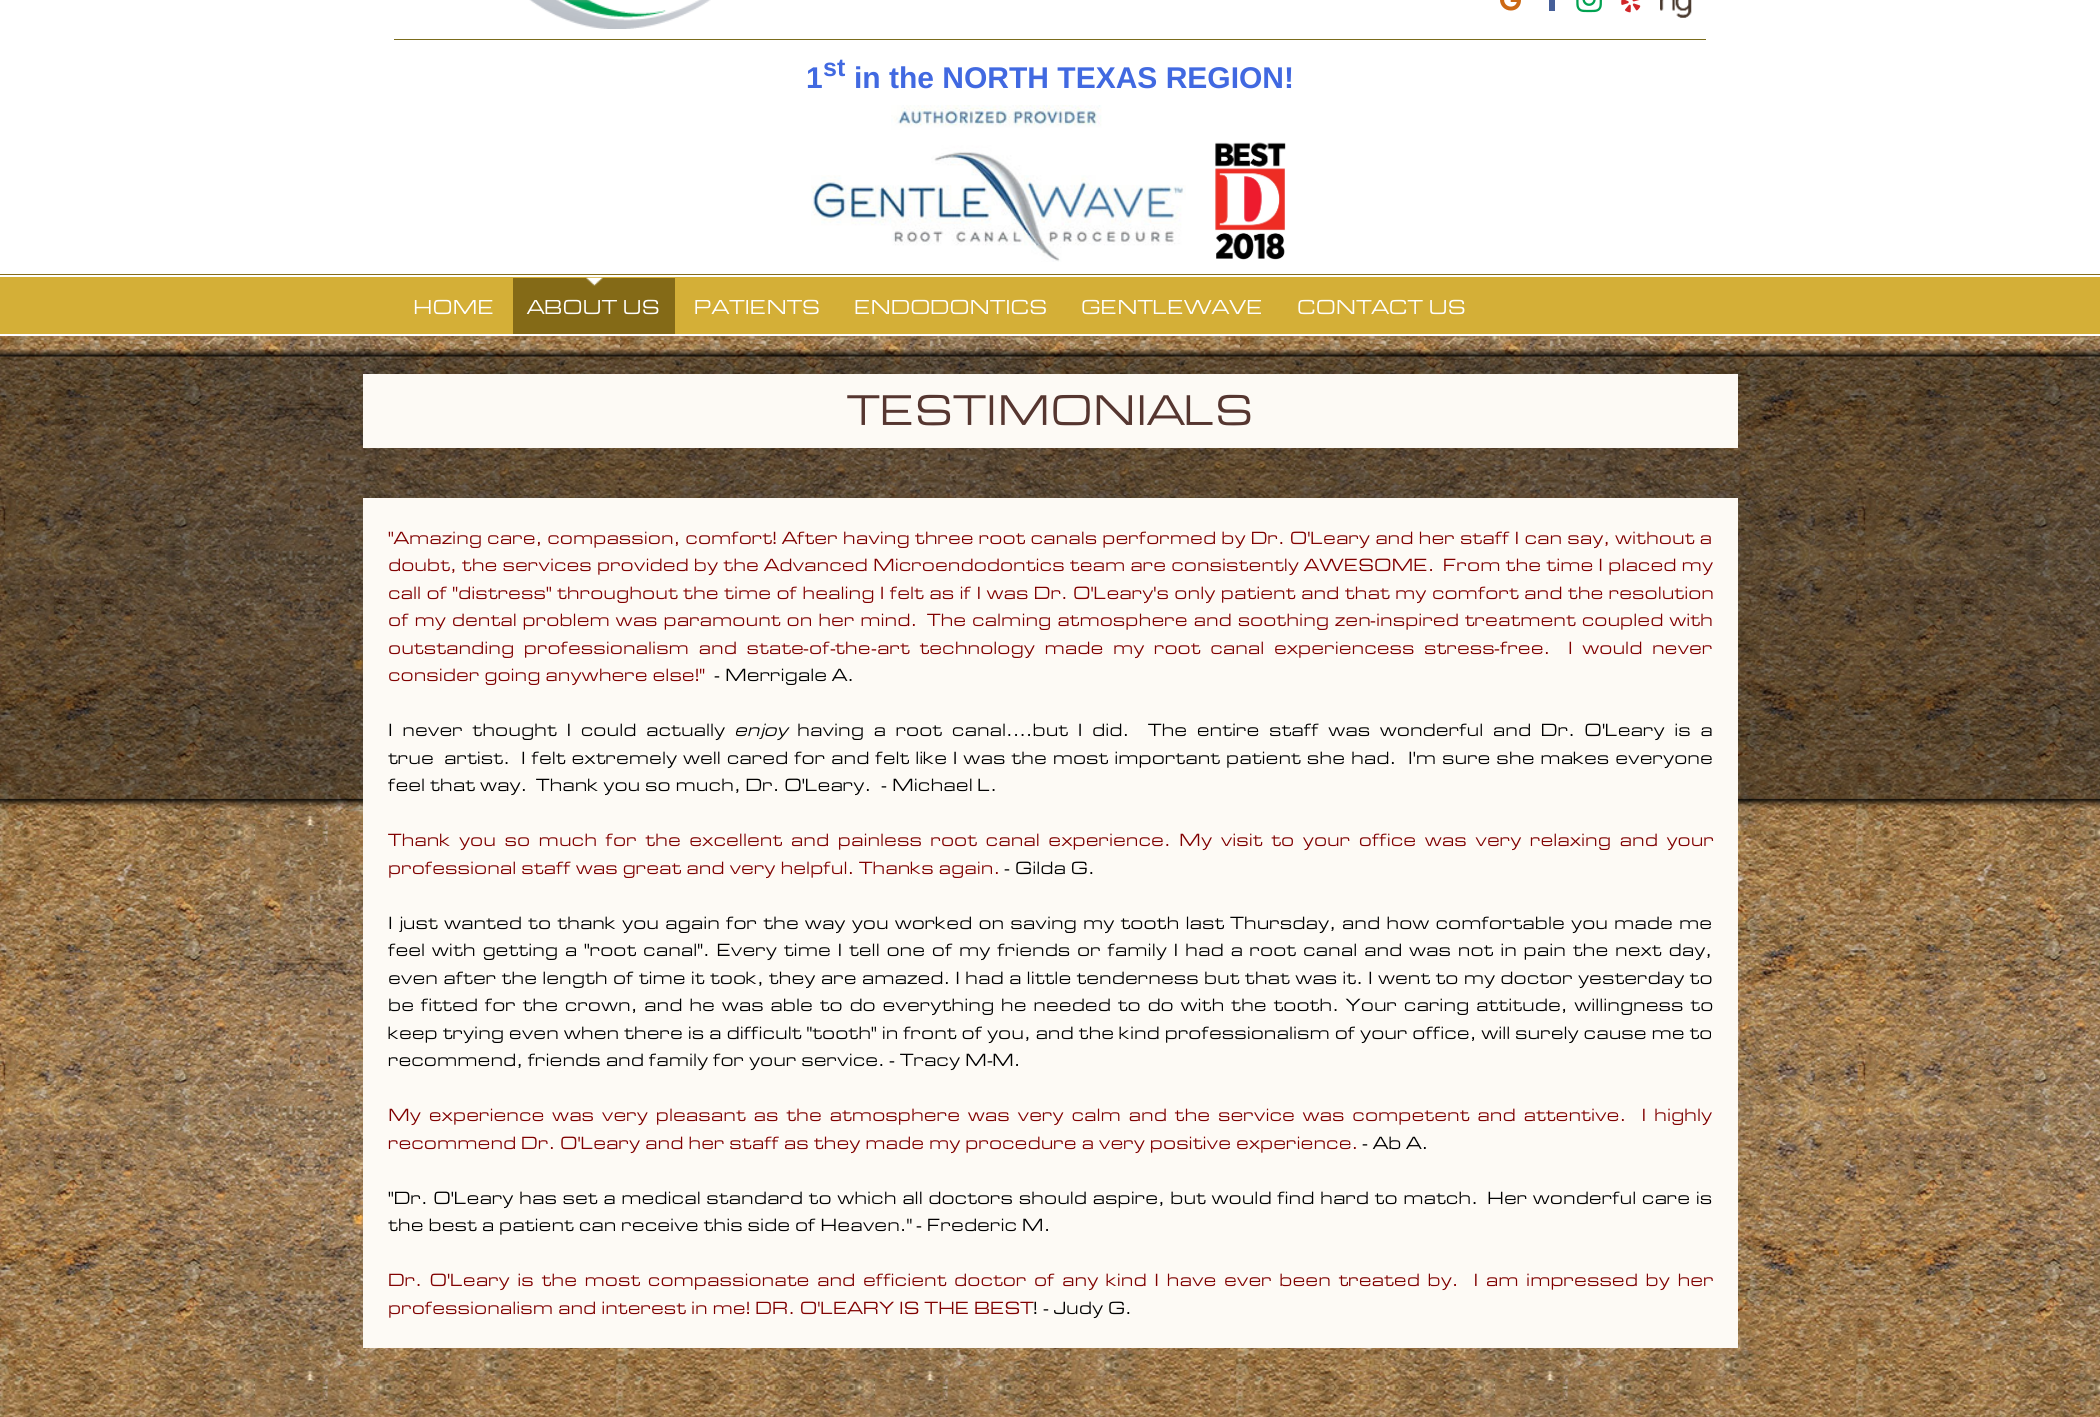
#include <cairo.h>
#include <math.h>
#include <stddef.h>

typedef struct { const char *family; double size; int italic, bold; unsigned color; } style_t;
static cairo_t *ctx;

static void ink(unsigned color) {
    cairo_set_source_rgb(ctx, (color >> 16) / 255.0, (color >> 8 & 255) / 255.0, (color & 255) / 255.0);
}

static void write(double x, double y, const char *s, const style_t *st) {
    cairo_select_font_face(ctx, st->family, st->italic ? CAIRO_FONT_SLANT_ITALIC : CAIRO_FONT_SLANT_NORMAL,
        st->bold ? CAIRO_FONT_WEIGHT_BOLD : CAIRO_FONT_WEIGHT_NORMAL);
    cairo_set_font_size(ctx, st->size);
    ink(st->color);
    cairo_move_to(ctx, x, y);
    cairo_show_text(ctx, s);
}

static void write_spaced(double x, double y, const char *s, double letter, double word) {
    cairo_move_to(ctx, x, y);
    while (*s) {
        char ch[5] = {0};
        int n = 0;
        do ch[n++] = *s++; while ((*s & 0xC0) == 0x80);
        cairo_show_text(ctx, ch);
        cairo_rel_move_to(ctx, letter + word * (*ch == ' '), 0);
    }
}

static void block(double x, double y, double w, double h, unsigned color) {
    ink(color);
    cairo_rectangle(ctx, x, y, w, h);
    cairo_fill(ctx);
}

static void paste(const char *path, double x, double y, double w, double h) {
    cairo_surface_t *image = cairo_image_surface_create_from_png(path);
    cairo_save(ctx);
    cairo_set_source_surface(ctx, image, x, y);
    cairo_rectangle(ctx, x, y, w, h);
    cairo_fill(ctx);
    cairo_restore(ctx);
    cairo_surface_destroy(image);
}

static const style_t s1 = {"Liberation Sans", 30, 0, 1, 0x4169e1};
static const style_t s2 = {"Liberation Sans", 25, 0, 1, 0x4169e1};
static const style_t s3 = {"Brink", 20, 0, 0, 0xffffff};
static const style_t s4 = {"Brink", 42.5, 0, 0, 0x563630};
static const style_t s5 = {"Liberation Serif", 17.5, 0, 0, 0x800000};
static const style_t s6 = {"Brink", 17.5, 0, 0, 0x800000};
static const style_t s7 = {"Liberation Serif", 17.5, 0, 0, 0x000000};
static const style_t s8 = {"Brink", 17.5, 0, 0, 0x000000};
static const style_t s9 = {"Brink", 17.5, 1, 0, 0x000000};

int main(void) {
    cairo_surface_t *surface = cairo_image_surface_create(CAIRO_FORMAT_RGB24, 2100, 1417);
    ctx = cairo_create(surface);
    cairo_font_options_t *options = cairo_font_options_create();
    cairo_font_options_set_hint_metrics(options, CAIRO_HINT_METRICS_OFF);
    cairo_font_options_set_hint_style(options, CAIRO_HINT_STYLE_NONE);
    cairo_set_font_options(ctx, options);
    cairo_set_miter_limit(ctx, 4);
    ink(0xffffff);
    cairo_paint(ctx);
    paste("pic1.png", 0, 336, 2100, 1081);
    paste("pic2.png", 529, 0, 182, 29);
    paste("pic3.png", 1500, 0, 21, 11);
    block(1549, 0, 6, 11, 0x465f99);
    paste("pic4.png", 1576, 0, 26, 13);
    paste("pic5.png", 1621, 0, 20, 13);
    paste("pic6.png", 1660, 0, 32, 18);
    block(394, 39, 1312, 1, 0x7b6c1d);
    write(806, 88, "1", &s1);
    write(823, 76, "st", &s2);
    write(854, 88, "in the NORTH TEXAS REGION!", &s1);
    paste("pic7.png", 811, 105, 375, 157);
    paste("pic8.png", 1215, 142, 71, 118);
    block(0, 274, 2100, 1, 0x856b18);
    block(0, 277, 2100, 57, 0xd4af37);
    block(0, 276, 2100, 1, 0xfffefc);
    block(0, 334, 2100, 1, 0xfffefc);
    write(413, 314, "HOME", &s3);
    block(513, 278, 162, 56, 0x846a17);
    paste("pic9.png", 586, 277, 17, 9);
    write(527, 314, "ABOUT US", &s3);
    write(694, 314, "PATIENTS", &s3);
    write(854, 314, "ENDODONTICS", &s3);
    write(1081, 314, "GENTLEWAVE", &s3);
    write(1297, 314, "CONTACT US", &s3);
    paste("pic10.png", 0, 349, 2100, 459);
    block(363, 374, 1375, 74, 0xfdfaf5);
    write(847, 425, "TESTIMONIALS", &s4);
    block(363, 498, 1375, 850, 0xfdfaf5);
    cairo_set_font_size(ctx, 17.5);
    ink(0x800000);
    write_spaced(388, 544, "\"Amazing care, compassion, comfort! After having three root canals performed by Dr. O'Leary and her staff I can say, without a", 0, 0.25);
    write_spaced(388, 571, "doubt, the services provided by the Advanced Microendodontics team are consistently AWESOME.", 0, 0.25);
    write_spaced(1443, 571, "From the time I placed my", 0, 0.25);
    write_spaced(388, 599, "call of \"distress\" throughout the time of healing I felt as if I was Dr. O'Leary's only patient and that my comfort and the resolution", 0, 0.5);
    write_spaced(388, 626, "of my dental problem was paramount on her mind.", 0, 1);
    write_spaced(927, 626, "The calming atmosphere and soothing zen", 0, 1);
    write(1370, 626, "-", &s5);
    cairo_select_font_face(ctx, "Brink", CAIRO_FONT_SLANT_NORMAL, CAIRO_FONT_WEIGHT_NORMAL);
    write_spaced(1376, 626, "inspired treatment coupled with", 0, 1);
    write_spaced(388, 654, "outstanding professionalism and state", 0, 4.75);
    write(803, 654, "-", &s5);
    write(809, 654, "of", &s6);
    write(830, 654, "-", &s5);
    write(835, 654, "the", &s6);
    write(871, 654, "-", &s5);
    cairo_select_font_face(ctx, "Brink", CAIRO_FONT_SLANT_NORMAL, CAIRO_FONT_WEIGHT_NORMAL);
    write_spaced(877, 654, "art technology made my root canal experiencess stress", 0, 4.75);
    write(1494, 654, "-", &s5);
    write(1500, 654, "free.", &s6);
    write_spaced(1568, 654, "I would never", 0, 4.75);
    write(388, 681, "consider going anywhere else!\"", &s6);
    write(714, 681, "-", &s7);
    write(725, 681, "Merrigale A.", &s8);
    write_spaced(388, 736, "I never thought I could actually", 0, 4.75);
    write(734, 736, "enjoy", &s9);
    cairo_select_font_face(ctx, "Brink", CAIRO_FONT_SLANT_NORMAL, CAIRO_FONT_WEIGHT_NORMAL);
    write_spaced(797, 736, "having a root canal....but I did.", 0, 4.75);
    write_spaced(1148, 736, "The entire", 0, 4.75);
    write_spaced(1269, 736, "staff was wonderful and Dr. O'Leary is a", 0, 4.75);
    write(388, 764, "true", &s8);
    write(444, 764, "artist.", &s8);
    write_spaced(521, 764, "I felt extremely well cared for and felt like I was the most important patient she had.", 0, 1);
    write_spaced(1408, 764, "I'm sure she makes everyone", 0, 1);
    write(388, 791, "feel that way.", &s8);
    write(536, 791, "Thank you so much, Dr. O'Leary.", &s8);
    write(881, 791, "-", &s7);
    write(892, 791, "Michael L.", &s8);
    ink(0x800000);
    write_spaced(388, 846, "Thank you so much for the excellent and painless root canal experience. My visit to your office was very relaxing and your", 0, 3.7);
    write(388, 874, "professional staff was great and very helpful. Thanks again.", &s6);
    write(1004, 874, "-", &s7);
    write(1015, 874, "Gilda G.", &s8);
    write_spaced(388, 929, "I just wanted to thank you again for the way you worked on saving my tooth last Thursday, and how comfortable you made me", 0, 1.25);
    write_spaced(388, 956, "feel with getting a \"root canal\". Every time I tell one of my friends or family I had a root canal and was not in pain the next day,", 0, 1.9);
    write_spaced(388, 984, "even after the length of time it took, they are amazed. I had a little tenderness but that was it. I went to my doctor yesterday to", 0, 0.35);
    write_spaced(388, 1011, "be fitted for the crown, and he was able to do everything he needed to do with the tooth. Your caring attitude, willingness to", 0, 1.9);
    write(388, 1039, "keep trying even when there is a difficult \"tooth\" in front of you, and the kind professionalism of your office, will surely cause me to", &s8);
    write(388, 1066, "recommend, friends and family for your service.", &s8);
    write(889, 1066, "-", &s7);
    write(900, 1066, "Tracy M", &s8);
    write(987, 1066, "-", &s7);
    write(992, 1066, "M.", &s8);
    ink(0x800000);
    write_spaced(388, 1121, "My experience was very pleasant as the atmosphere was very calm and the service was competent and attentive.  I highly", 0, 2.9);
    write(388, 1149, "recommend Dr. O'Leary and her staff as they made my procedure a very positive experience.", &s6);
    write(1362, 1149, "-", &s7);
    write(1373, 1149, "Ab A.", &s8);
    write_spaced(388, 1204, "\"Dr. O'Leary has set a medical standard to which all doctors should aspire, but would find hard to match.", 0, 0.7);
    write_spaced(1487, 1204, "Her wonderful care is", 0, 0.7);
    write(388, 1231, "the best a patient can receive this side of Heaven.\"", &s8);
    write(916, 1231, "-", &s7);
    write(927, 1231, "Frederic M.", &s8);
    ink(0x800000);
    write_spaced(388, 1286, "Dr. O'Leary is the most compassionate and efficient doctor of any kind I have ever been treated by.  I am impressed by her", 0, 2.7);
    write(388, 1314, "professionalism and interest in me! DR. O'LEARY IS THE BEST", &s6);
    write(1033, 1314, "!", &s8);
    write(1043, 1314, "-", &s7);
    write(1053, 1314, "Judy G.", &s8);
    cairo_surface_write_to_png(surface, "screenshot.png");
    cairo_font_options_destroy(options);
    cairo_destroy(ctx);
    cairo_surface_destroy(surface);
    return 0;
}
